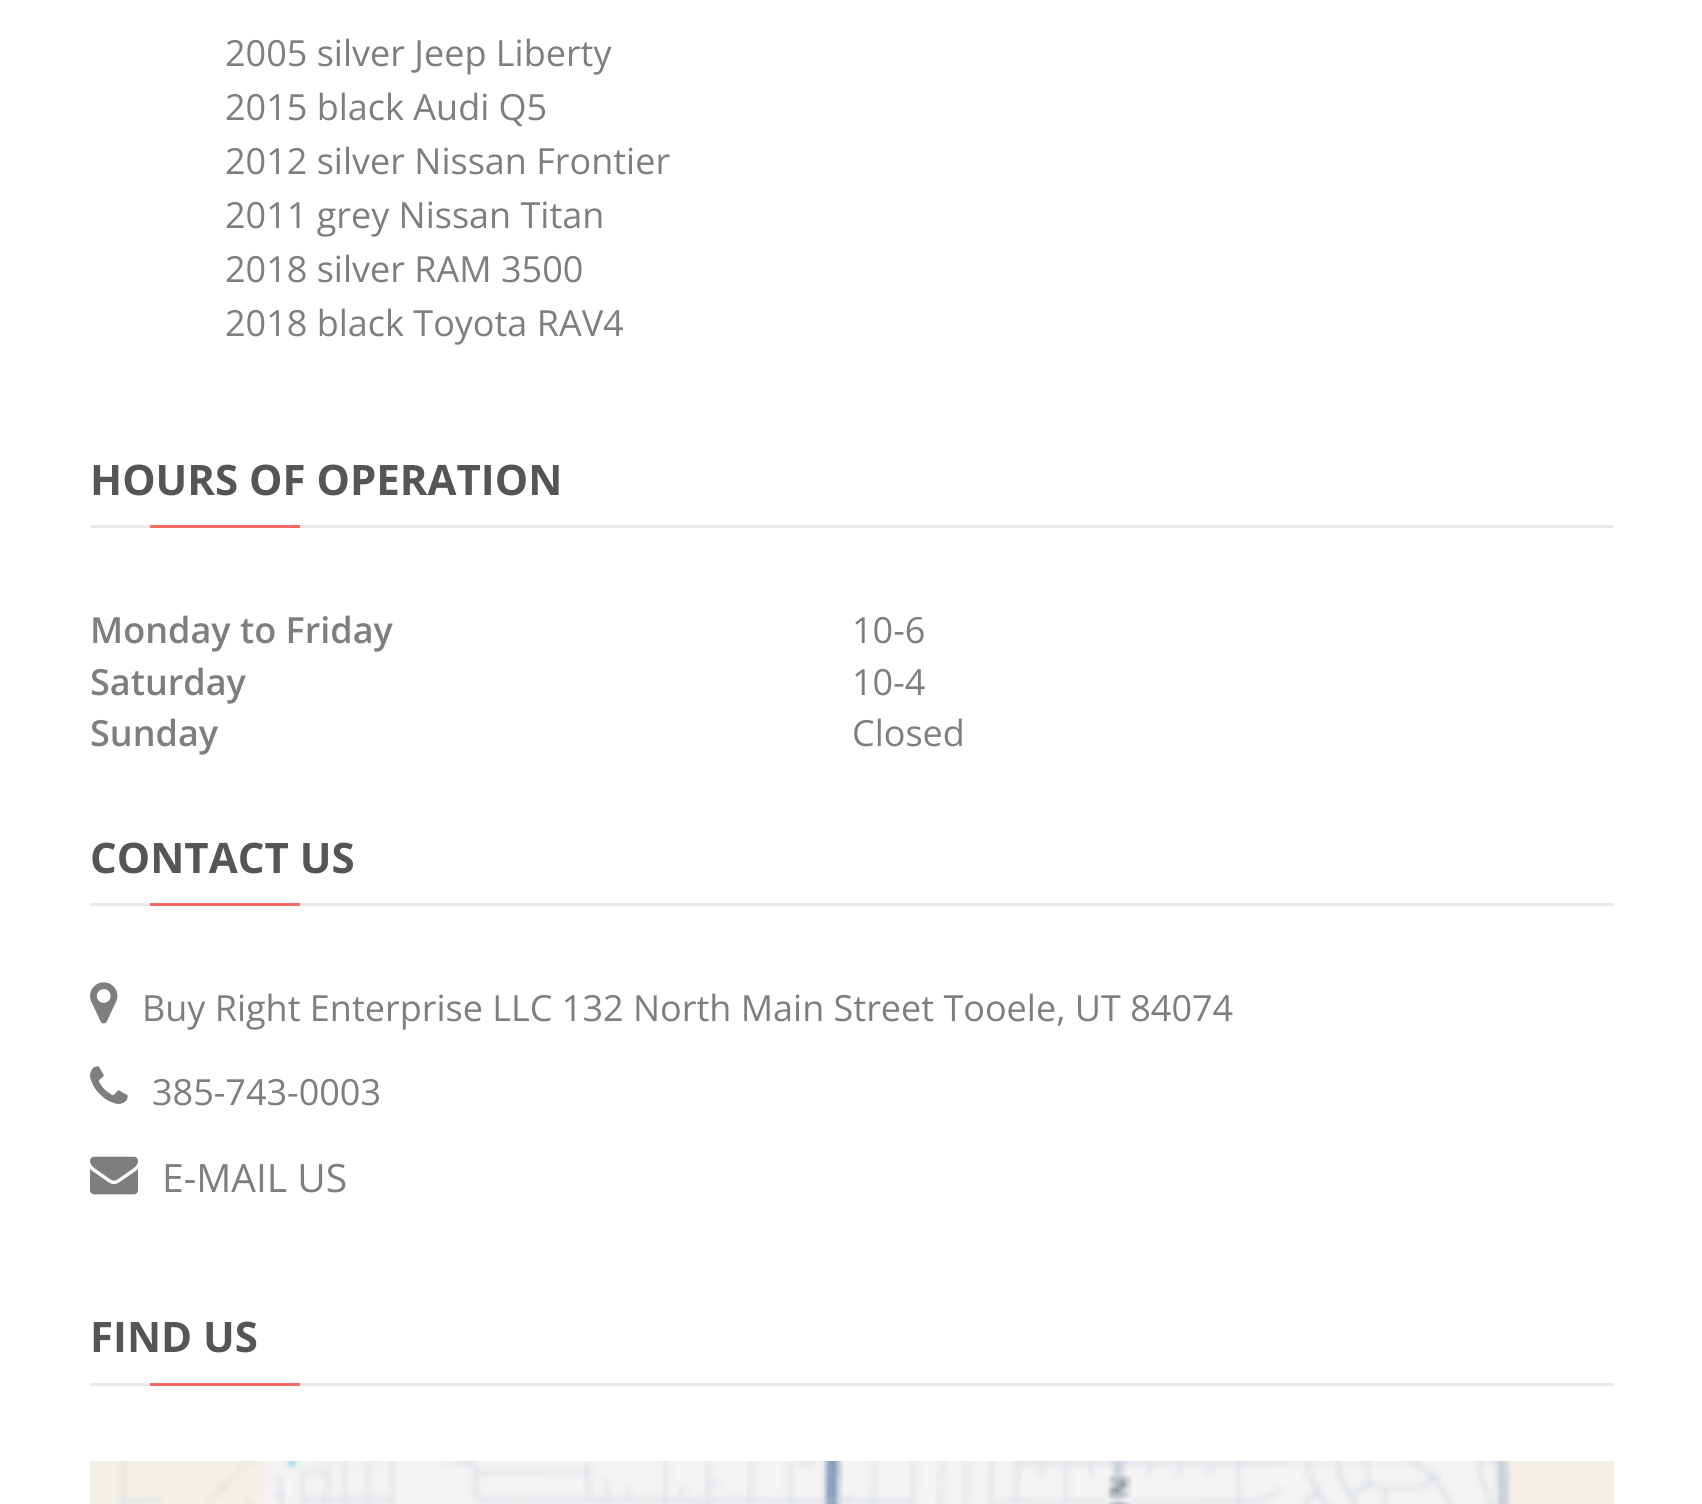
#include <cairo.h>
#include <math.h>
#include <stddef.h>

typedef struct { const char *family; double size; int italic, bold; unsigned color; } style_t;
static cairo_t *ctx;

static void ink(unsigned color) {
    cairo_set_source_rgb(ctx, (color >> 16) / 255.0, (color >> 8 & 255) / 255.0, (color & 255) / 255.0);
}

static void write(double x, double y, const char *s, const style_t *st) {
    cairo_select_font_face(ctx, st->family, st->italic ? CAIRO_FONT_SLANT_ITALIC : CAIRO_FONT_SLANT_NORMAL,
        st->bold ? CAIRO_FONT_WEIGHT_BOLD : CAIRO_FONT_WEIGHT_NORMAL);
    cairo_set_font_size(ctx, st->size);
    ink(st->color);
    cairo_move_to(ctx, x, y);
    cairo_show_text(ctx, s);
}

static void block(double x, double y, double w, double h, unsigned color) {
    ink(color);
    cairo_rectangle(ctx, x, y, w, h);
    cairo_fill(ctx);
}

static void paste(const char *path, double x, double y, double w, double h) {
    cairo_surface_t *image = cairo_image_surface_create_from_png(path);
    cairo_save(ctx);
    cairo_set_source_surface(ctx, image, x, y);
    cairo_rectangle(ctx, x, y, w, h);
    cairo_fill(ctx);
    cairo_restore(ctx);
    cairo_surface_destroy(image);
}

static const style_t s1 = {"Open Sans", 36, 0, 0, 0x7e7e7e};
static const style_t s2 = {"Open Sans", 42, 0, 1, 0x555555};
static const style_t s3 = {"Open Sans SemiBold", 36, 0, 0, 0x7e7e7e};
static const style_t s4 = {"Open Sans", 39, 0, 0, 0x7e7e7e};

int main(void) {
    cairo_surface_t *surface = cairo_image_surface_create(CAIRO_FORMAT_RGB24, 1702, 1504);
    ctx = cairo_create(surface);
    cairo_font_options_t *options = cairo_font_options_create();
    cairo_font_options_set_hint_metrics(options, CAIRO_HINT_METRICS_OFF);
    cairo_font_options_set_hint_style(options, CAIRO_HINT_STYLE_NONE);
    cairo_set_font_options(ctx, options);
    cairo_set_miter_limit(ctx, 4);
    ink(0xffffff);
    cairo_paint(ctx);
    write(225, 66, "2005 silver Jeep Liberty", &s1);
    write(225, 120, "2015 black Audi Q5", &s1);
    write(225, 174, "2012 silver Nissan Frontier", &s1);
    write(225, 228, "2011 grey Nissan Titan", &s1);
    write(225, 282, "2018 silver RAM 3500", &s1);
    write(225, 336, "2018 black Toyota RAV4", &s1);
    block(90, 525, 1524, 3, 0xeaeaea);
    write(90, 495, "HOURS OF OPERATION", &s2);
    block(150, 525, 150, 3, 0xfa6964);
    write(90, 643, "Monday to Friday", &s3);
    write(852, 643, "10-6", &s1);
    write(90, 695, "Saturday", &s3);
    write(852, 695, "10-4", &s1);
    write(90, 746, "Sunday", &s3);
    write(852, 746, "Closed", &s1);
    block(90, 903, 1524, 3, 0xeaeaea);
    write(90, 873, "CONTACT US", &s2);
    block(150, 903, 150, 3, 0xfa6964);
    paste("pic1.png", 90, 982, 28, 42);
    write(142, 1021, "Buy Right Enterprise LLC 132 North Main Street Tooele, UT 84074", &s1);
    paste("pic2.png", 90, 1066, 38, 38);
    write(152, 1105, "385-743-0003", &s1);
    paste("pic3.png", 90, 1156, 48, 39);
    write(162, 1192, "E-MAIL US", &s4);
    block(90, 1383, 1524, 3, 0xeaeaea);
    write(90, 1352, "FIND US", &s2);
    block(150, 1383, 150, 3, 0xfa6964);
    paste("pic4.png", 90, 1461, 1524, 43);
    cairo_surface_write_to_png(surface, "screenshot.png");
    cairo_font_options_destroy(options);
    cairo_destroy(ctx);
    cairo_surface_destroy(surface);
    return 0;
}
